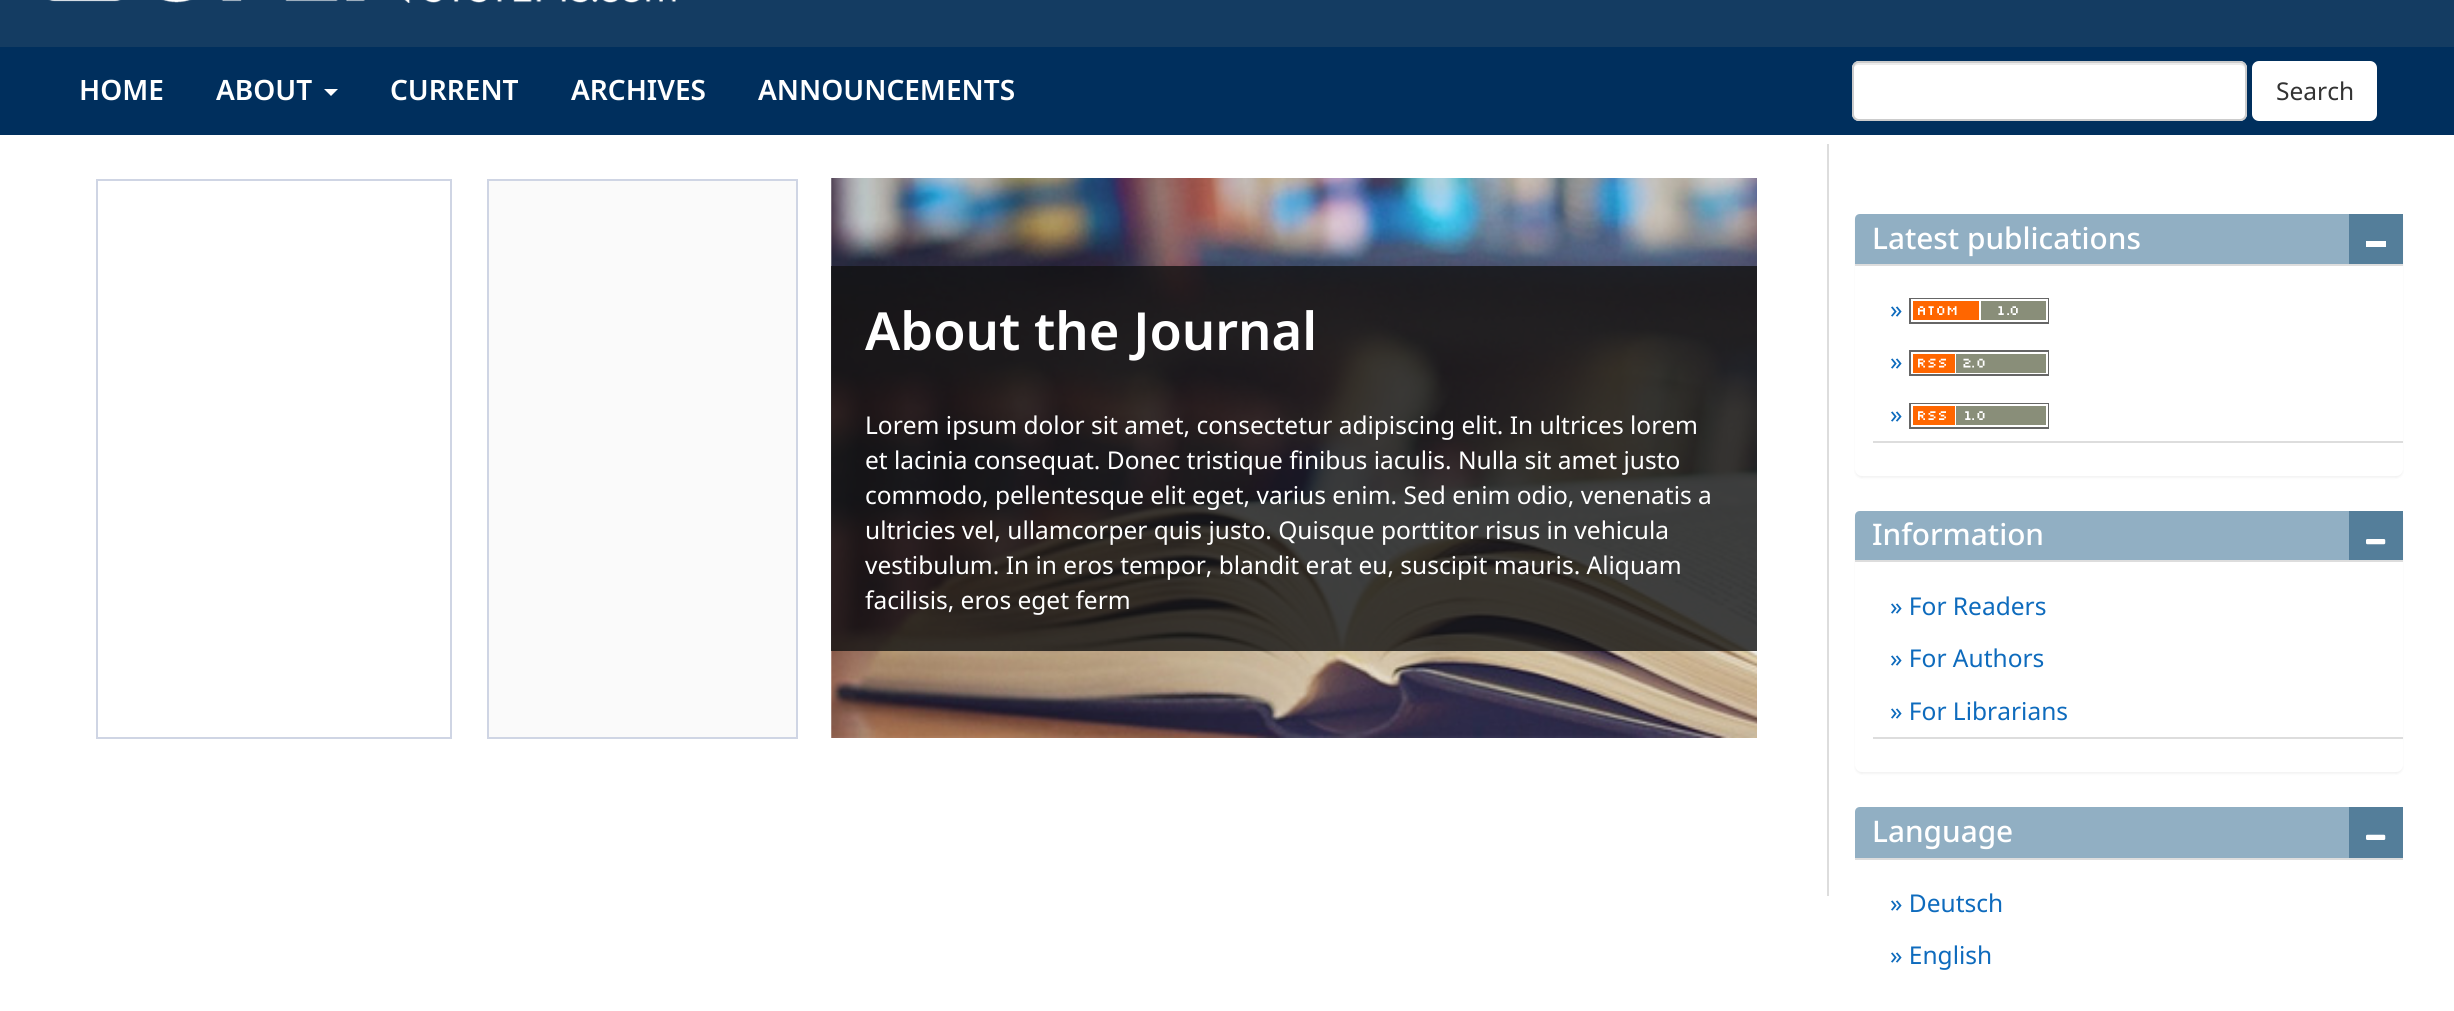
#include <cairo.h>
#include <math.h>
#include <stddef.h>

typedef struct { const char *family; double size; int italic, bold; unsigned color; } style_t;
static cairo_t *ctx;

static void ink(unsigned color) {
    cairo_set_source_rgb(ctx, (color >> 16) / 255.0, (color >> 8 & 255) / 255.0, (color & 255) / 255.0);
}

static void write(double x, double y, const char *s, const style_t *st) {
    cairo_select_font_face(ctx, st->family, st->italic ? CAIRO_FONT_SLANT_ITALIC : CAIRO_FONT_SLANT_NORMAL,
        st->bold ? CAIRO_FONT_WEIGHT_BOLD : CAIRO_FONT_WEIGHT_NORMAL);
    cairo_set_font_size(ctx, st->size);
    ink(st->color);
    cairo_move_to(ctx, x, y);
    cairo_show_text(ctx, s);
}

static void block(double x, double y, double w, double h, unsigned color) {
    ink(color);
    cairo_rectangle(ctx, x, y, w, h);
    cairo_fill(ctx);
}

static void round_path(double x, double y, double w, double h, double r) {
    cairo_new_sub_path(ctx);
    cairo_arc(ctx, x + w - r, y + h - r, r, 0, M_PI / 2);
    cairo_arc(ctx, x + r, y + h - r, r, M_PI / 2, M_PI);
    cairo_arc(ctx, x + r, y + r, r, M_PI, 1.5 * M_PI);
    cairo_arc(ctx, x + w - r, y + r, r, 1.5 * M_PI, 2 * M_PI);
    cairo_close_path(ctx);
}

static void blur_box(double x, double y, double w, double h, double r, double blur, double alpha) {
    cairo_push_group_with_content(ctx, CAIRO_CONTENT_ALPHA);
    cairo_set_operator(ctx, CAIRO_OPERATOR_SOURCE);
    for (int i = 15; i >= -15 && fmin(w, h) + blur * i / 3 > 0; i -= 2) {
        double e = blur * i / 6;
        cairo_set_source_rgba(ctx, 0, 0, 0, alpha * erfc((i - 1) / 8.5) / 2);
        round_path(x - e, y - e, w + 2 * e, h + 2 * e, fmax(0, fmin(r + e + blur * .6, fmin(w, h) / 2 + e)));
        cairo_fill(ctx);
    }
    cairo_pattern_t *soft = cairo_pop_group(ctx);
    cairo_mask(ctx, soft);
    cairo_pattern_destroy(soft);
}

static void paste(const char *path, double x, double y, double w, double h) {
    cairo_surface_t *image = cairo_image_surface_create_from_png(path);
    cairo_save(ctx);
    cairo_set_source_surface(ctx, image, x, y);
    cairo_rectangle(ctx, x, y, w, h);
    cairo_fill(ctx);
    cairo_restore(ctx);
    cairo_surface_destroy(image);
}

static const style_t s1 = {"Noto Sans SemiBold", 28, 0, 0, 0xffffff};
static const style_t s2 = {"Noto Sans", 24.5, 0, 0, 0x333333};
static const style_t s3 = {"Noto Sans SemiBold", 52.5, 0, 0, 0xffffff};
static const style_t s4 = {"Noto Sans", 24.5, 0, 0, 0xffffff};
static const style_t s5 = {"Noto Sans Medium", 29.75, 0, 0, 0xffffff};
static const style_t s6 = {"Noto Sans", 24.5, 0, 0, 0x0e6bbd};

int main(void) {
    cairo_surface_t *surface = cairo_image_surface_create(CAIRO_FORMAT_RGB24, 2454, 1011);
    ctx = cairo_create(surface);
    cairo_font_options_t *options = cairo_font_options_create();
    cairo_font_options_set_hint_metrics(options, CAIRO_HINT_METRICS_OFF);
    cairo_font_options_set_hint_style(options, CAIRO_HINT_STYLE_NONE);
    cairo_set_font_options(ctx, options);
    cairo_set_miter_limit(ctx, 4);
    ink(0xffffff);
    cairo_paint(ctx);
    block(0, 0, 2454, 47, 0x143c62);
    paste("pic1.png", 48, 0, 628, 3);
    block(0, 47, 2454, 88, 0x002f5d);
    write(79, 100, "HOME", &s1);
    write(216, 100, "ABOUT", &s1);
    cairo_new_path(ctx);
    cairo_move_to(ctx, 324, 89);
    cairo_line_to(ctx, 338, 89);
    cairo_line_to(ctx, 331, 96);
    cairo_close_path(ctx);
    cairo_fill(ctx);
    write(390, 100, "CURRENT", &s1);
    write(571, 100, "ARCHIVES", &s1);
    write(758, 100, "ANNOUNCEMENTS", &s1);
    round_path(1852, 61, 395, 60, 7);
    cairo_fill(ctx);
    ink(0xececec);
    cairo_new_path(ctx);
    cairo_move_to(ctx, 1858, 65);
    cairo_line_to(ctx, 2240, 65);
    cairo_curve_to(ctx, 2243, 65, 2245, 67, 2245, 70);
    cairo_line_to(ctx, 2245, 68);
    cairo_curve_to(ctx, 2245, 65, 2243, 63, 2240, 63);
    cairo_line_to(ctx, 1858, 63);
    cairo_curve_to(ctx, 1855, 63, 1853, 65, 1853, 68);
    cairo_line_to(ctx, 1853, 70);
    cairo_curve_to(ctx, 1853, 67, 1856, 65, 1858, 65);
    cairo_close_path(ctx);
    cairo_fill(ctx);
    round_path(1853, 62, 393, 58, 6);
    ink(0xcccccc);
    cairo_stroke(ctx);
    ink(0xffffff);
    round_path(2253, 62, 123, 58, 6);
    cairo_fill_preserve(ctx);
    cairo_stroke(ctx);
    write(2276, 100, "Search", &s2);
    block(1827, 144, 2, 752, 0xdddddd);
    cairo_rectangle(ctx, 97, 180, 354, 558);
    ink(0xcfd5e4);
    cairo_stroke(ctx);
    ink(0xfafafa);
    cairo_rectangle(ctx, 488, 180, 309, 558);
    cairo_fill_preserve(ctx);
    ink(0xcfd5e4);
    cairo_stroke(ctx);
    paste("pic2.png", 831, 178, 926, 560);
    cairo_set_source_rgba(ctx, 0.071, 0.071, 0.071, 0.8);
    cairo_rectangle(ctx, 831, 266, 926, 385);
    cairo_fill(ctx);
    write(865, 350, "About the Journal", &s3);
    write(865, 434, "Lorem ipsum dolor sit amet, consectetur adipiscing elit. In ultrices lorem", &s4);
    write(865, 469, "et lacinia consequat. Donec tristique finibus iaculis. Nulla sit amet justo", &s4);
    write(865, 504, "commodo, pellentesque elit eget, varius enim. Sed enim odio, venenatis a", &s4);
    write(865, 539, "ultricies vel, ullamcorper quis justo. Quisque porttitor risus in vehicula", &s4);
    write(865, 574, "vestibulum. In in eros tempor, blandit erat eu, suscipit mauris. Aliquam", &s4);
    write(865, 609, "facilisis, eros eget ferm", &s4);
    ink(0x000000);
    blur_box(1855, 215, 548, 263, 7, 1, 0.05);
    ink(0xffffff);
    round_path(1855, 214, 548, 262, 7);
    cairo_fill(ctx);
    ink(0x91afc3);
    cairo_new_path(ctx);
    cairo_move_to(ctx, 1860, 214);
    cairo_line_to(ctx, 2398, 214);
    cairo_curve_to(ctx, 2401, 214, 2403, 216, 2403, 219);
    cairo_line_to(ctx, 2403, 266);
    cairo_line_to(ctx, 1855, 266);
    cairo_line_to(ctx, 1855, 219);
    cairo_curve_to(ctx, 1855, 216, 1857, 214, 1860, 214);
    cairo_close_path(ctx);
    cairo_fill(ctx);
    block(1855, 264, 548, 2, 0xdddddd);
    write(1872, 249, "Latest publications", &s5);
    block(2349, 214, 54, 50, 0x547e9a);
    block(2366, 241, 20, 6, 0xffffff);
    write(1890, 318, "»", &s6);
    paste("pic3.png", 1909, 298, 140, 26);
    write(1890, 370, "»", &s6);
    paste("pic4.png", 1909, 350, 140, 26);
    block(1873, 441, 530, 2, 0xdddddd);
    write(1890, 423, "»", &s6);
    paste("pic5.png", 1909, 403, 140, 26);
    ink(0x000000);
    blur_box(1855, 513, 548, 261, 7, 1, 0.05);
    ink(0xffffff);
    round_path(1855, 511, 548, 261, 7);
    cairo_fill(ctx);
    ink(0x91afc3);
    cairo_new_path(ctx);
    cairo_move_to(ctx, 1860, 511);
    cairo_line_to(ctx, 2398, 511);
    cairo_curve_to(ctx, 2401, 511, 2403, 513, 2403, 516);
    cairo_line_to(ctx, 2403, 562);
    cairo_line_to(ctx, 1855, 562);
    cairo_line_to(ctx, 1855, 516);
    cairo_curve_to(ctx, 1855, 513, 1857, 511, 1860, 511);
    cairo_close_path(ctx);
    cairo_fill(ctx);
    block(1855, 560, 548, 2, 0xdddddd);
    write(1872, 545, "Information", &s5);
    block(2349, 511, 54, 49, 0x547e9a);
    paste("pic6.png", 2366, 539, 20, 6);
    write(1890, 615, "» For Readers", &s6);
    write(1890, 667, "» For Authors", &s6);
    block(1873, 737, 530, 2, 0xdddddd);
    write(1890, 720, "» For Librarians", &s6);
    ink(0x91afc3);
    cairo_new_path(ctx);
    cairo_move_to(ctx, 1860, 807);
    cairo_line_to(ctx, 2398, 807);
    cairo_curve_to(ctx, 2401, 807, 2403, 809, 2403, 812);
    cairo_line_to(ctx, 2403, 859);
    cairo_line_to(ctx, 1855, 859);
    cairo_line_to(ctx, 1855, 812);
    cairo_curve_to(ctx, 1855, 809, 1857, 807, 1860, 807);
    cairo_close_path(ctx);
    cairo_fill(ctx);
    block(1855, 858, 548, 2, 0xdddddd);
    write(1872, 842, "Language", &s5);
    block(2349, 807, 54, 51, 0x547e9a);
    paste("pic7.png", 2366, 834, 20, 6);
    write(1890, 912, "» Deutsch", &s6);
    write(1890, 964, "» English", &s6);
    cairo_surface_write_to_png(surface, "screenshot.png");
    cairo_font_options_destroy(options);
    cairo_destroy(ctx);
    cairo_surface_destroy(surface);
    return 0;
}
